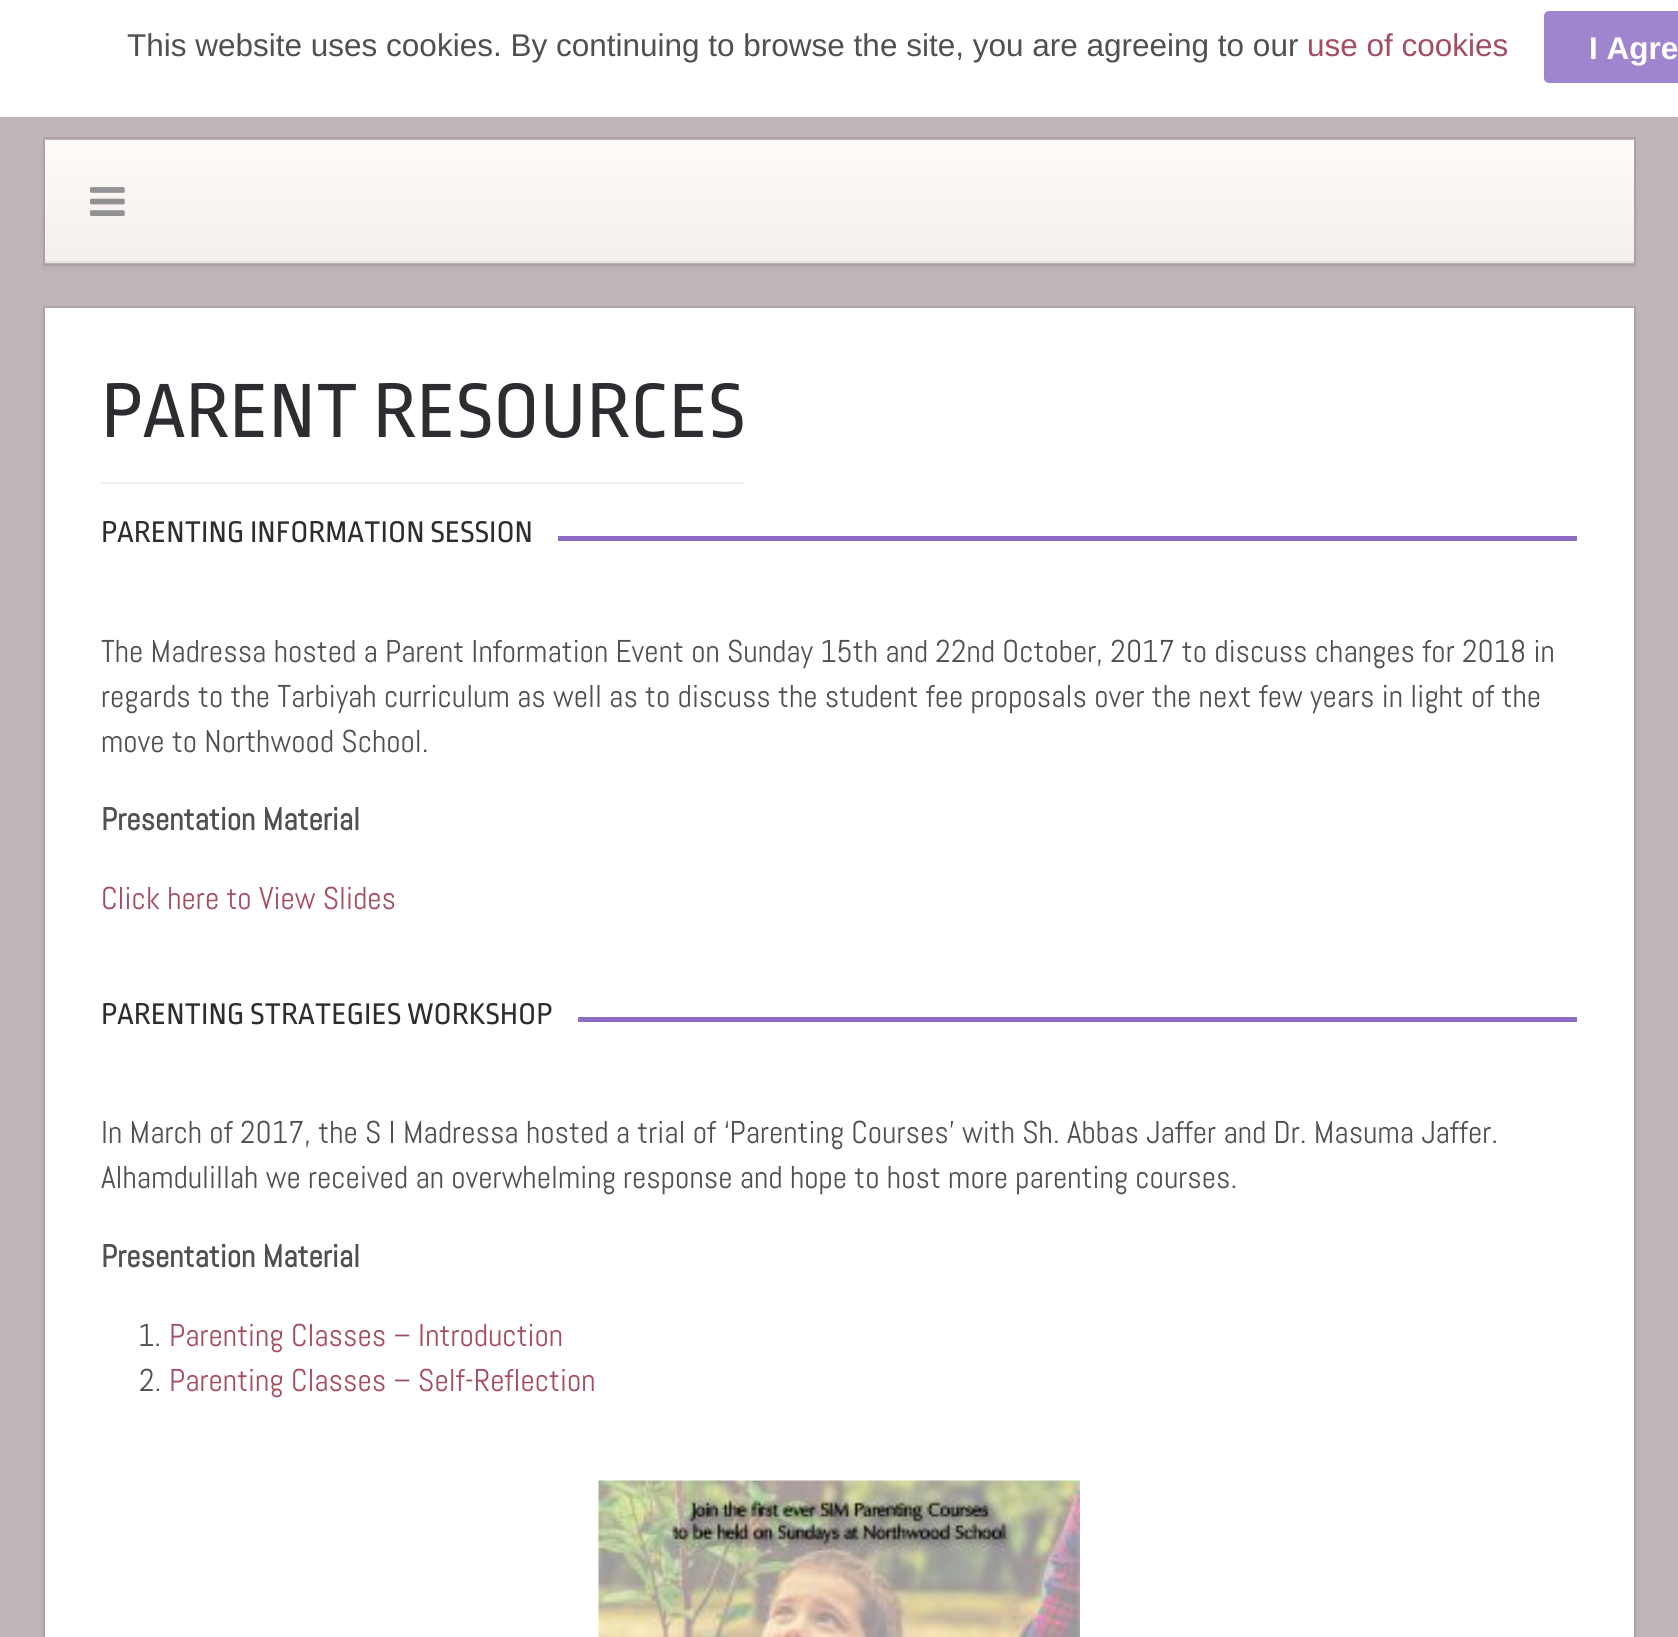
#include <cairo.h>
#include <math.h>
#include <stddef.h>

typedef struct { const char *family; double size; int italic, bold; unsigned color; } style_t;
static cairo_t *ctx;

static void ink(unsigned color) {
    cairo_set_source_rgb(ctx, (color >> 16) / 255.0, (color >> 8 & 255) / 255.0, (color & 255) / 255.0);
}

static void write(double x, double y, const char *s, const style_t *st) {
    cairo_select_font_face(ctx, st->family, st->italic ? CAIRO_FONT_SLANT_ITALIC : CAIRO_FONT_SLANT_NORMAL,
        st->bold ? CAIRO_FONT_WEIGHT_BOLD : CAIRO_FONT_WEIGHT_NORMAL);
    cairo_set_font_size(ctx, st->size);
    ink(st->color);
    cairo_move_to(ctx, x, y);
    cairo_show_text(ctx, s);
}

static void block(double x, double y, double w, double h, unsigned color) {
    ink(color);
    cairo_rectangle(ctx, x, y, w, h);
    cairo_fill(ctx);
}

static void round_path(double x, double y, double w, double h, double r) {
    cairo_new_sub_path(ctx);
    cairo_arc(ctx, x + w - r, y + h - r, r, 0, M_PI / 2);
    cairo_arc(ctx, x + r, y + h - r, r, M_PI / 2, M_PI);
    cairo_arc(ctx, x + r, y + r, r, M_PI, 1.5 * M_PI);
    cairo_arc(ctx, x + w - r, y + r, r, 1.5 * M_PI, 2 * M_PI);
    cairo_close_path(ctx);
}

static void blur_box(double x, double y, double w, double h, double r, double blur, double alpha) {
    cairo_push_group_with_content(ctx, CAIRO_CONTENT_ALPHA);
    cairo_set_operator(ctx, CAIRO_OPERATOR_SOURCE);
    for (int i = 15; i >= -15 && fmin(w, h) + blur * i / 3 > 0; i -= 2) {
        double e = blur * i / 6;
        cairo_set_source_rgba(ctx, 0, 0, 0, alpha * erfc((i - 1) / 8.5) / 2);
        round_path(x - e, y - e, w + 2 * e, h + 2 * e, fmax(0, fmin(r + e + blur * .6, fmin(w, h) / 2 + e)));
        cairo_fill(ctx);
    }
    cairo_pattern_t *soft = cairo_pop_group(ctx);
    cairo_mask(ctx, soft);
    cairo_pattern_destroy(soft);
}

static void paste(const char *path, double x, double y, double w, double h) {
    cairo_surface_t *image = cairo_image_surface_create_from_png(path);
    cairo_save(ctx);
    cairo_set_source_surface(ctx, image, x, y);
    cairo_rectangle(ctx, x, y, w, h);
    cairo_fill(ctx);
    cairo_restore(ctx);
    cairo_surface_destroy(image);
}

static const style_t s1 = {"Liberation Sans", 31.5, 0, 0, 0x4f5054};
static const style_t s2 = {"Liberation Sans", 31.5, 0, 0, 0xa54d60};
static const style_t s3 = {"Liberation Sans", 31.5, 0, 1, 0xffffff};
static const style_t s4 = {"Ropa Sans", 81, 0, 0, 0x2c2d30};
static const style_t s5 = {"Ropa Sans", 31.5, 0, 0, 0x2c2d30};
static const style_t s6 = {"Abel", 31.5, 0, 0, 0x4f5054};
static const style_t s7 = {"Abel", 31.5, 0, 1, 0x4f5054};
static const style_t s8 = {"Abel", 31.5, 0, 0, 0xa54d60};

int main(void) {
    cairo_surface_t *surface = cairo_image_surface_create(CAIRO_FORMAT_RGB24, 1678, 1637);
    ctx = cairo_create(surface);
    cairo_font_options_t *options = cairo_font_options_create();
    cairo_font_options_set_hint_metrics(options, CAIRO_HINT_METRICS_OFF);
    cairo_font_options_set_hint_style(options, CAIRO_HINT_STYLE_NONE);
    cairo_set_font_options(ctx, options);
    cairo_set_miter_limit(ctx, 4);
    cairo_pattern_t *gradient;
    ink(0xbfb6ba);
    cairo_paint(ctx);
    block(0, 0, 1678, 117, 0xffffff);
    write(127, 56, "This website uses cookies. By continuing to browse the site, you are agreeing to our", &s1);
    write(1307, 56, "use of cookies", &s2);
    ink(0x9f85cd);
    round_path(1544, 11, 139, 72, 5);
    cairo_fill(ctx);
    write(1589, 59, "I Agre", &s3);
    ink(0x624449);
    blur_box(45, 144, 1589, 124, 0, 5.5, 0.09);
    cairo_rectangle(ctx, 44, 138, 1591, 127);
    cairo_set_source_rgba(ctx, 0.384, 0.267, 0.286, 0.16);
    cairo_stroke(ctx);
    gradient = cairo_pattern_create_linear(839, 139, 839, 263);
    cairo_pattern_add_color_stop_rgba(gradient, 0, 1, 0.984, 0.976, 1);
    cairo_pattern_add_color_stop_rgba(gradient, 1, 0.957, 0.937, 0.929, 1);
    cairo_set_source(ctx, gradient);
    cairo_pattern_destroy(gradient);
    cairo_rectangle(ctx, 45, 140, 1589, 121);
    cairo_fill(ctx);
    block(45, 261, 1589, 2, 0xe5e1df);
    paste("pic1.png", 90, 187, 35, 29);
    ink(0x624449);
    blur_box(45, 313, 1589, 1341, 0, 5.5, 0.09);
    cairo_rectangle(ctx, 44, 307, 1591, 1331);
    cairo_set_source_rgba(ctx, 0.384, 0.267, 0.286, 0.16);
    cairo_stroke(ctx);
    block(45, 308, 1589, 1329, 0xffffff);
    block(101, 482, 644, 2, 0xf0f0f0);
    write(101, 437, "PARENT RESOURCES", &s4);
    write(101, 542, "PARENTING INFORMATION SESSION", &s5);
    block(558, 536, 1019, 5, 0x8d6dc4);
    write(101, 662, "The Madressa hosted a Parent Information Event on Sunday 15th and 22nd October, 2017 to discuss changes for 2018 in", &s6);
    write(101, 707, "regards to the Tarbiyah curriculum as well as to discuss the student fee proposals over the next few years in light of the", &s6);
    write(101, 752, "move to Northwood School.", &s6);
    write(101, 830, "Presentation Material", &s7);
    write(101, 909, "Click here to View Slides", &s8);
    write(101, 1024, "PARENTING STRATEGIES WORKSHOP", &s5);
    block(578, 1017, 999, 5, 0x8d6dc4);
    write(101, 1143, "In March of 2017, the S I Madressa hosted a trial of ‘Parenting Courses’ with Sh. Abbas Jaffer and Dr. Masuma Jaffer.", &s6);
    write(101, 1188, "Alhamdulillah we received an overwhelming response and hope to host more parenting courses.", &s6);
    write(101, 1267, "Presentation Material", &s7);
    write(138, 1346, "1.", &s6);
    write(169, 1346, "Parenting Classes – Introduction", &s8);
    write(139, 1391, "2.", &s6);
    write(169, 1391, "Parenting Classes – Self-Reflection", &s8);
    paste("pic2.png", 598, 1480, 482, 157);
    cairo_surface_write_to_png(surface, "screenshot.png");
    cairo_font_options_destroy(options);
    cairo_destroy(ctx);
    cairo_surface_destroy(surface);
    return 0;
}
